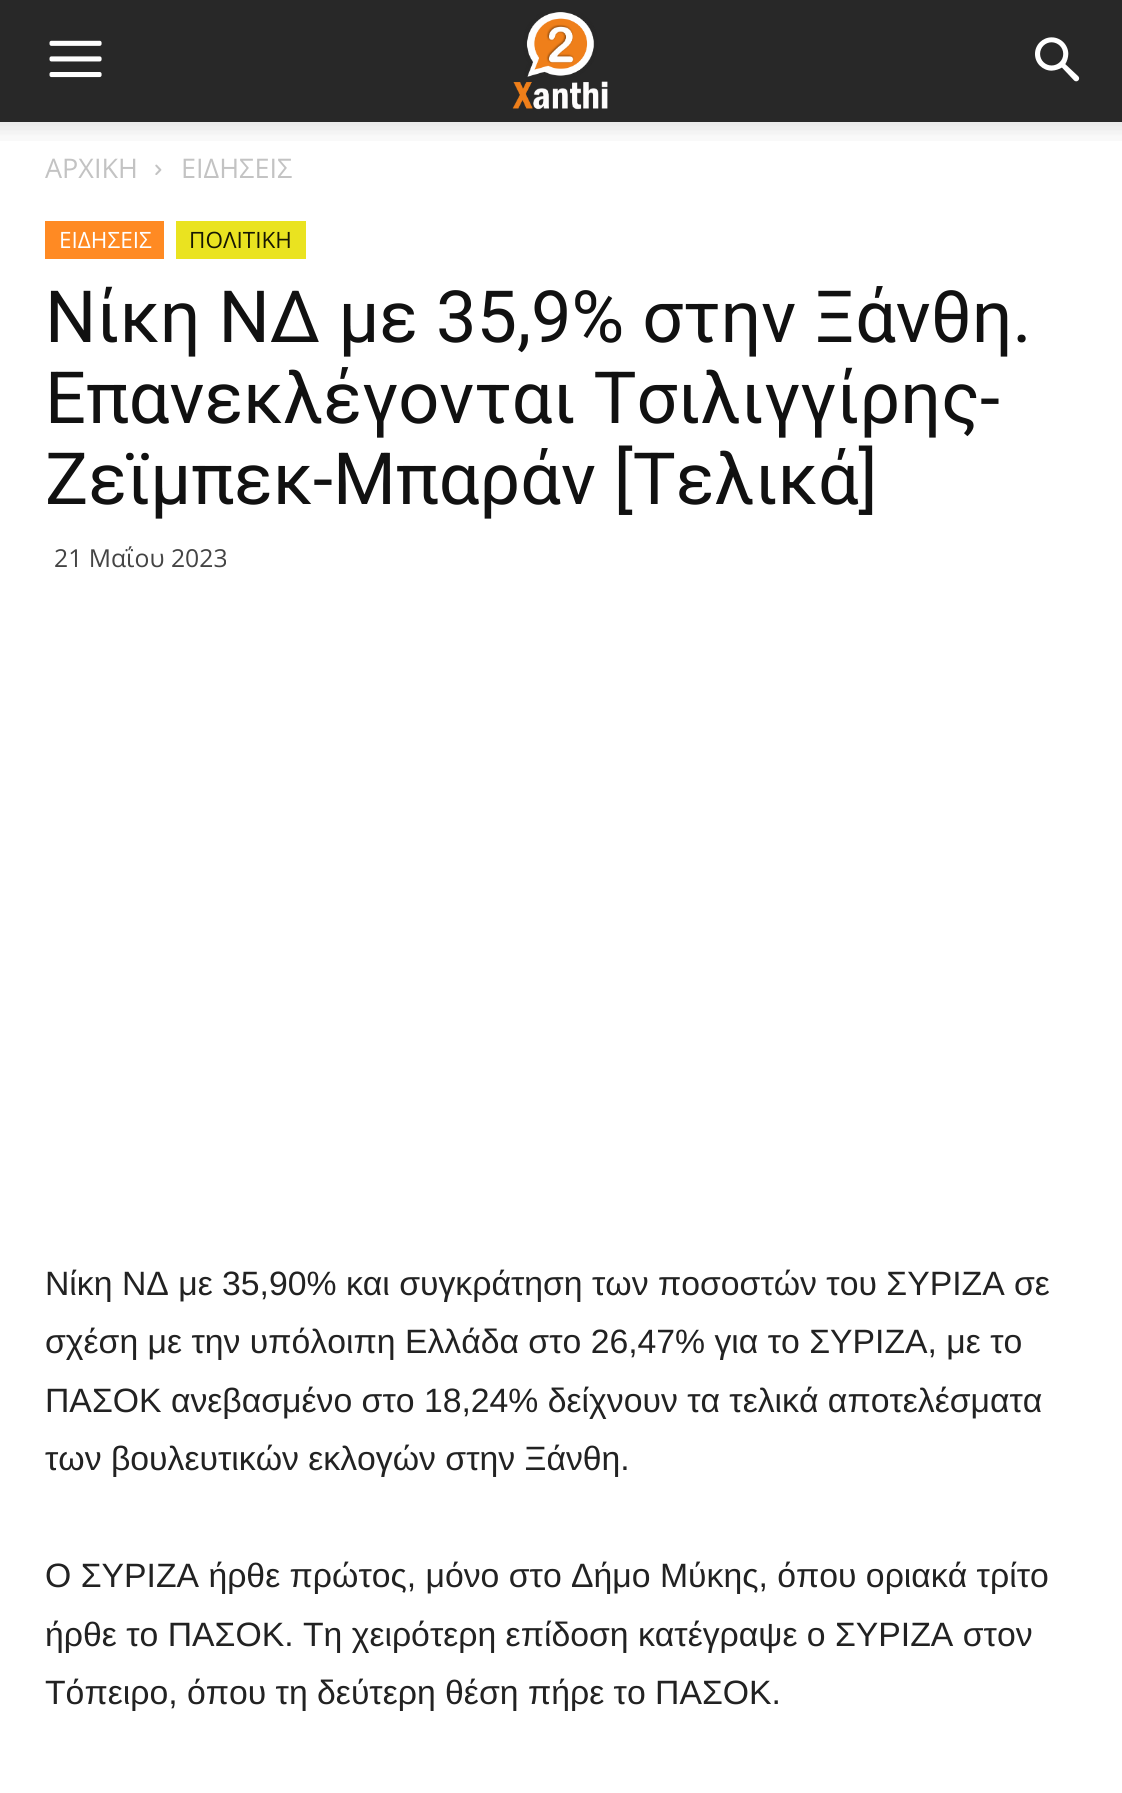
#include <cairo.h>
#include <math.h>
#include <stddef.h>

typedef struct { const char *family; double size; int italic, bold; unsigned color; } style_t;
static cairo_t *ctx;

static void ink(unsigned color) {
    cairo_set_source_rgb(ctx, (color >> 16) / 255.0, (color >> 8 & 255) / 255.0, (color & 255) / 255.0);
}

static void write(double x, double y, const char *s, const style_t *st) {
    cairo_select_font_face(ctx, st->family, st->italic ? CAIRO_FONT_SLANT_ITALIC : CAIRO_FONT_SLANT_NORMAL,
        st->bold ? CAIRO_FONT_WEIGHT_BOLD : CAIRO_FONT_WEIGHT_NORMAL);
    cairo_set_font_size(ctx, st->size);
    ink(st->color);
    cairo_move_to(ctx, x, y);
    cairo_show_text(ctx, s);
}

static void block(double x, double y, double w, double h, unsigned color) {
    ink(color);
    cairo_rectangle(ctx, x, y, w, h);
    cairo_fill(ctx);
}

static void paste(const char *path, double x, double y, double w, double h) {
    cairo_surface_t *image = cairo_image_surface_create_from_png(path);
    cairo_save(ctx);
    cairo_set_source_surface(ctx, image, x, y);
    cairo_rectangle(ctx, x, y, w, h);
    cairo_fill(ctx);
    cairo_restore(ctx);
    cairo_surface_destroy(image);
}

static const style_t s1 = {"Open Sans", 27, 0, 0, 0xc3c3c3};
static const style_t s2 = {"Open Sans", 22.5, 0, 0, 0xffffff};
static const style_t s3 = {"Open Sans", 22.5, 0, 0, 0x171703};
static const style_t s4 = {"Roboto", 72, 0, 0, 0x111111};
static const style_t s5 = {"Open Sans", 24.75, 0, 0, 0x444444};
static const style_t s6 = {"Liberation Sans", 33.75, 0, 0, 0x222222};

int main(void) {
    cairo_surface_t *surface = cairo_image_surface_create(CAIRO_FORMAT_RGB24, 1122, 1793);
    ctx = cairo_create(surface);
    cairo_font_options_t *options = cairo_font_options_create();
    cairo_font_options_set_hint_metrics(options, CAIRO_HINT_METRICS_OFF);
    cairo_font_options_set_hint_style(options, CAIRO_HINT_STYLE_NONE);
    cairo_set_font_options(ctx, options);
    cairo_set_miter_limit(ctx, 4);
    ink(0xffffff);
    cairo_paint(ctx);
    block(0, 0, 1122, 122, 0x282828);
    paste("pic1.png", 49, 40, 53, 38);
    paste("pic2.png", 512, 12, 96, 98);
    paste("pic3.png", 1035, 37, 45, 45);
    paste("pic4.png", 0, 122, 1122, 19);
    write(45, 178, "ΑΡΧΙΚΗ", &s1);
    paste("pic5.png", 155, 164, 7, 11);
    write(181, 178, "ΕΙΔΗΣΕΙΣ", &s1);
    block(45, 221, 119, 38, 0xff8a23);
    write(59, 248, "ΕΙΔΗΣΕΙΣ", &s2);
    block(176, 221, 130, 38, 0xeae320);
    write(189, 248, "ΠΟΛΙΤΙΚΗ", &s3);
    write(45, 342, "Νίκη ΝΔ με 35,9% στην Ξάνθη.", &s4);
    write(45, 423, "Επανεκλέγονται Τσιλιγγίρης-", &s4);
    write(45, 504, "Ζεϊμπεκ-Μπαράν [Τελικά]", &s4);
    write(54, 567, "21 Μαΐου 2023", &s5);
    write(45, 1295, "Νίκη ΝΔ με 35,90% και συγκράτηση των ποσοστών του ΣΥΡΙΖΑ σε", &s6);
    write(45, 1353, "σχέση με την υπόλοιπη Ελλάδα στο 26,47% για το ΣΥΡΙΖΑ, με το", &s6);
    write(45, 1412, "ΠΑΣΟΚ ανεβασμένο στο 18,24% δείχνουν τα τελικά αποτελέσματα", &s6);
    write(45, 1470, "των βουλευτικών εκλογών στην Ξάνθη.", &s6);
    write(45, 1587, "Ο ΣΥΡΙΖΑ ήρθε πρώτος, μόνο στο Δήμο Μύκης, όπου οριακά τρίτο", &s6);
    write(45, 1646, "ήρθε το ΠΑΣΟΚ. Τη χειρότερη επίδοση κατέγραψε ο ΣΥΡΙΖΑ στον", &s6);
    write(45, 1704, "Τόπειρο, όπου τη δεύτερη θέση πήρε το ΠΑΣΟΚ.", &s6);
    cairo_surface_write_to_png(surface, "screenshot.png");
    cairo_font_options_destroy(options);
    cairo_destroy(ctx);
    cairo_surface_destroy(surface);
    return 0;
}
